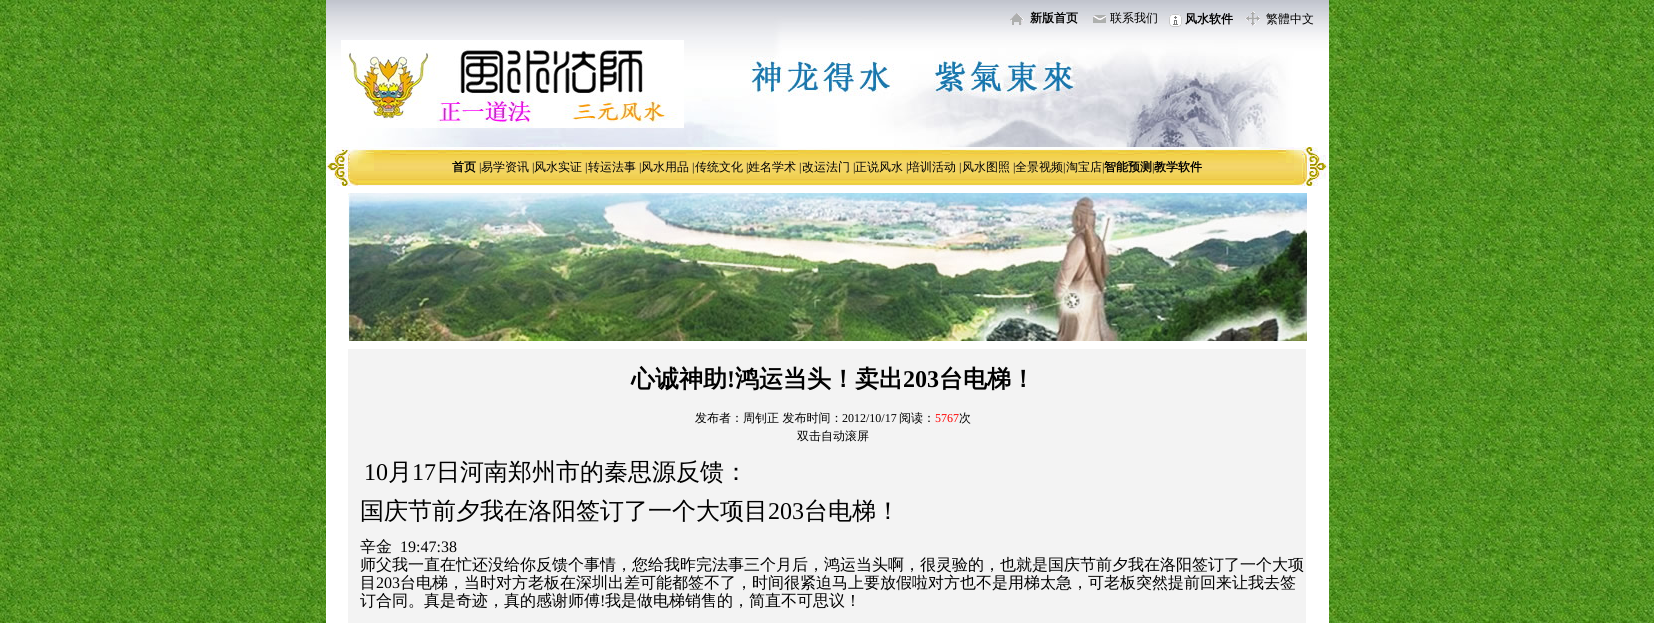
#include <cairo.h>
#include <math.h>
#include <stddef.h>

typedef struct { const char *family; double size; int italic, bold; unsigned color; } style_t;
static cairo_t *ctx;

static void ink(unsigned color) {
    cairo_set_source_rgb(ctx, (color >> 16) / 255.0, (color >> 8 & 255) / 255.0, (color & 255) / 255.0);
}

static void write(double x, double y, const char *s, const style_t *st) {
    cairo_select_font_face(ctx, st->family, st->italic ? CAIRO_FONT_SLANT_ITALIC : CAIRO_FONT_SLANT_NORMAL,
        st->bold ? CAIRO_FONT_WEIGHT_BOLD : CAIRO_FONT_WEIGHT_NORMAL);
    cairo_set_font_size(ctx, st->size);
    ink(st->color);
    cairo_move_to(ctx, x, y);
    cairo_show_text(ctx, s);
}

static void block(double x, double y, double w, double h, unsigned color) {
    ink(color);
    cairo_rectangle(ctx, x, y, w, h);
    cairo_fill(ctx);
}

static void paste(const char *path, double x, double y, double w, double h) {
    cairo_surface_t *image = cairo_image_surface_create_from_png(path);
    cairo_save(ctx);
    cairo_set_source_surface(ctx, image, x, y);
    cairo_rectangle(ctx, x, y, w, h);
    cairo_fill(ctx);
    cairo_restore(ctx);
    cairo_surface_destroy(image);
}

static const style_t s1 = {"WenQuanYi Zen Hei", 12, 0, 1, 0x000000};
static const style_t s2 = {"WenQuanYi Zen Hei Medium", 12, 0, 0, 0x000000};
static const style_t s3 = {"Liberation Serif", 12, 0, 0, 0x000000};
static const style_t s4 = {"WenQuanYi Zen Hei", 24, 0, 1, 0x000000};
static const style_t s5 = {"Liberation Serif", 24, 0, 1, 0x000000};
static const style_t s6 = {"Liberation Serif", 12, 0, 0, 0xff0000};
static const style_t s7 = {"Liberation Serif", 24, 0, 0, 0x000000};
static const style_t s8 = {"WenQuanYi Zen Hei Medium", 24, 0, 0, 0x000000};
static const style_t s9 = {"WenQuanYi Zen Hei Medium", 16, 0, 0, 0x000000};
static const style_t s10 = {"Liberation Serif", 16, 0, 0, 0x000000};

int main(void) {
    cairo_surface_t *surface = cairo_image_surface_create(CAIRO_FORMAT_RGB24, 1654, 623);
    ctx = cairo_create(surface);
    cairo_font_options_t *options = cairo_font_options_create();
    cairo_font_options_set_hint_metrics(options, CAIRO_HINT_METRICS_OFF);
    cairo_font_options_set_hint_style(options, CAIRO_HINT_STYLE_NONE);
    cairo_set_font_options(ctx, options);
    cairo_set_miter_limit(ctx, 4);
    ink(0xffffff);
    cairo_paint(ctx);
    paste("pic1.png", 0, 0, 1654, 623);
    block(326, 147, 1003, 476, 0xffffff);
    paste("pic2.png", 326, 0, 1003, 147);
    paste("pic3.png", 1010, 13, 14, 12);
    write(1030, 22, "新版首页", &s1);
    paste("pic4.png", 1093, 15, 13, 8);
    write(1110, 22, "联系我们", &s2);
    paste("pic5.png", 1169, 14, 13, 13);
    write(1185, 23, "风水软件", &s1);
    paste("pic6.png", 1245, 11, 15, 15);
    write(1266, 23, "繁體中文", &s2);
    paste("pic7.png", 341, 40, 343, 88);
    paste("pic8.png", 326, 147, 1002, 39);
    write(452, 171, "首页", &s1);
    write(479, 171, "|", &s3);
    write(481, 171, "易学资讯", &s2);
    write(532, 171, "|", &s3);
    write(534, 171, "风水实证", &s2);
    write(585, 171, "|", &s3);
    write(588, 171, "转运法事", &s2);
    write(639, 171, "|", &s3);
    write(641, 171, "风水用品", &s2);
    write(692, 171, "|", &s3);
    write(695, 171, "传统文化", &s2);
    write(746, 171, "|", &s3);
    write(748, 171, "姓名学术", &s2);
    write(799, 171, "|", &s3);
    write(802, 171, "改运法门", &s2);
    write(853, 171, "|", &s3);
    write(855, 171, "正说风水", &s2);
    write(906, 171, "|", &s3);
    write(908, 171, "培训活动", &s2);
    write(959, 171, "|", &s3);
    write(962, 171, "风水图照", &s2);
    write(1013, 171, "|", &s3);
    write(1015, 171, "全景视频", &s2);
    write(1063, 171, "|", &s3);
    write(1066, 171, "淘宝店", &s2);
    write(1102, 171, "|", &s3);
    write(1104, 171, "智能预测", &s1);
    write(1152, 171, "|", &s3);
    write(1154, 171, "教学软件", &s1);
    paste("pic9.png", 348, 193, 1, 148);
    paste("pic10.png", 349, 193, 958, 148);
    block(348, 349, 958, 274, 0xf3f3f3);
    write(631, 387, "心诚神助", &s4);
    write(727, 387, "!", &s5);
    write(735, 387, "鸿运当头！卖出", &s4);
    write(903, 387, "203", &s5);
    write(939, 387, "台电梯！", &s4);
    write(695, 422, "发布者：周钊正 发布时间：", &s2);
    write(842, 422, "2012/10/17", &s3);
    write(899, 422, "阅读：", &s2);
    write(935, 422, "5767", &s6);
    write(959, 422, "次", &s2);
    write(797, 440, "双击自动滚屏", &s2);
    write(364, 480, "10", &s7);
    write(388, 480, "月", &s8);
    write(412, 480, "17", &s7);
    write(436, 480, "日河南郑州市的秦思源反馈：", &s8);
    write(360, 519, "国庆节前夕我在洛阳签订了一个大项目", &s8);
    write(768, 519, "203", &s7);
    write(804, 519, "台电梯！", &s8);
    write(360, 552, "辛金", &s9);
    write(400, 552, "19:47:38", &s10);
    write(360, 570, "师父我一直在忙还没给你反馈个事情，您给我昨完法事三个月后，鸿运当头啊，很灵验的，也就是国庆节前夕我在洛阳签订了一个大项", &s9);
    write(360, 588, "目", &s9);
    write(376, 588, "203", &s10);
    write(400, 588, "台电梯，当时对方老板在深圳出差可能都签不了，时间很紧迫马上要放假啦对方也不是用梯太急，可老板突然提前回来让我去签", &s9);
    write(360, 606, "订合同。真是奇迹，真的感谢师傅", &s9);
    write(600, 606, "!", &s10);
    write(605, 606, "我是做电梯销售的，简直不可思议！", &s9);
    cairo_surface_write_to_png(surface, "screenshot.png");
    cairo_font_options_destroy(options);
    cairo_destroy(ctx);
    cairo_surface_destroy(surface);
    return 0;
}
